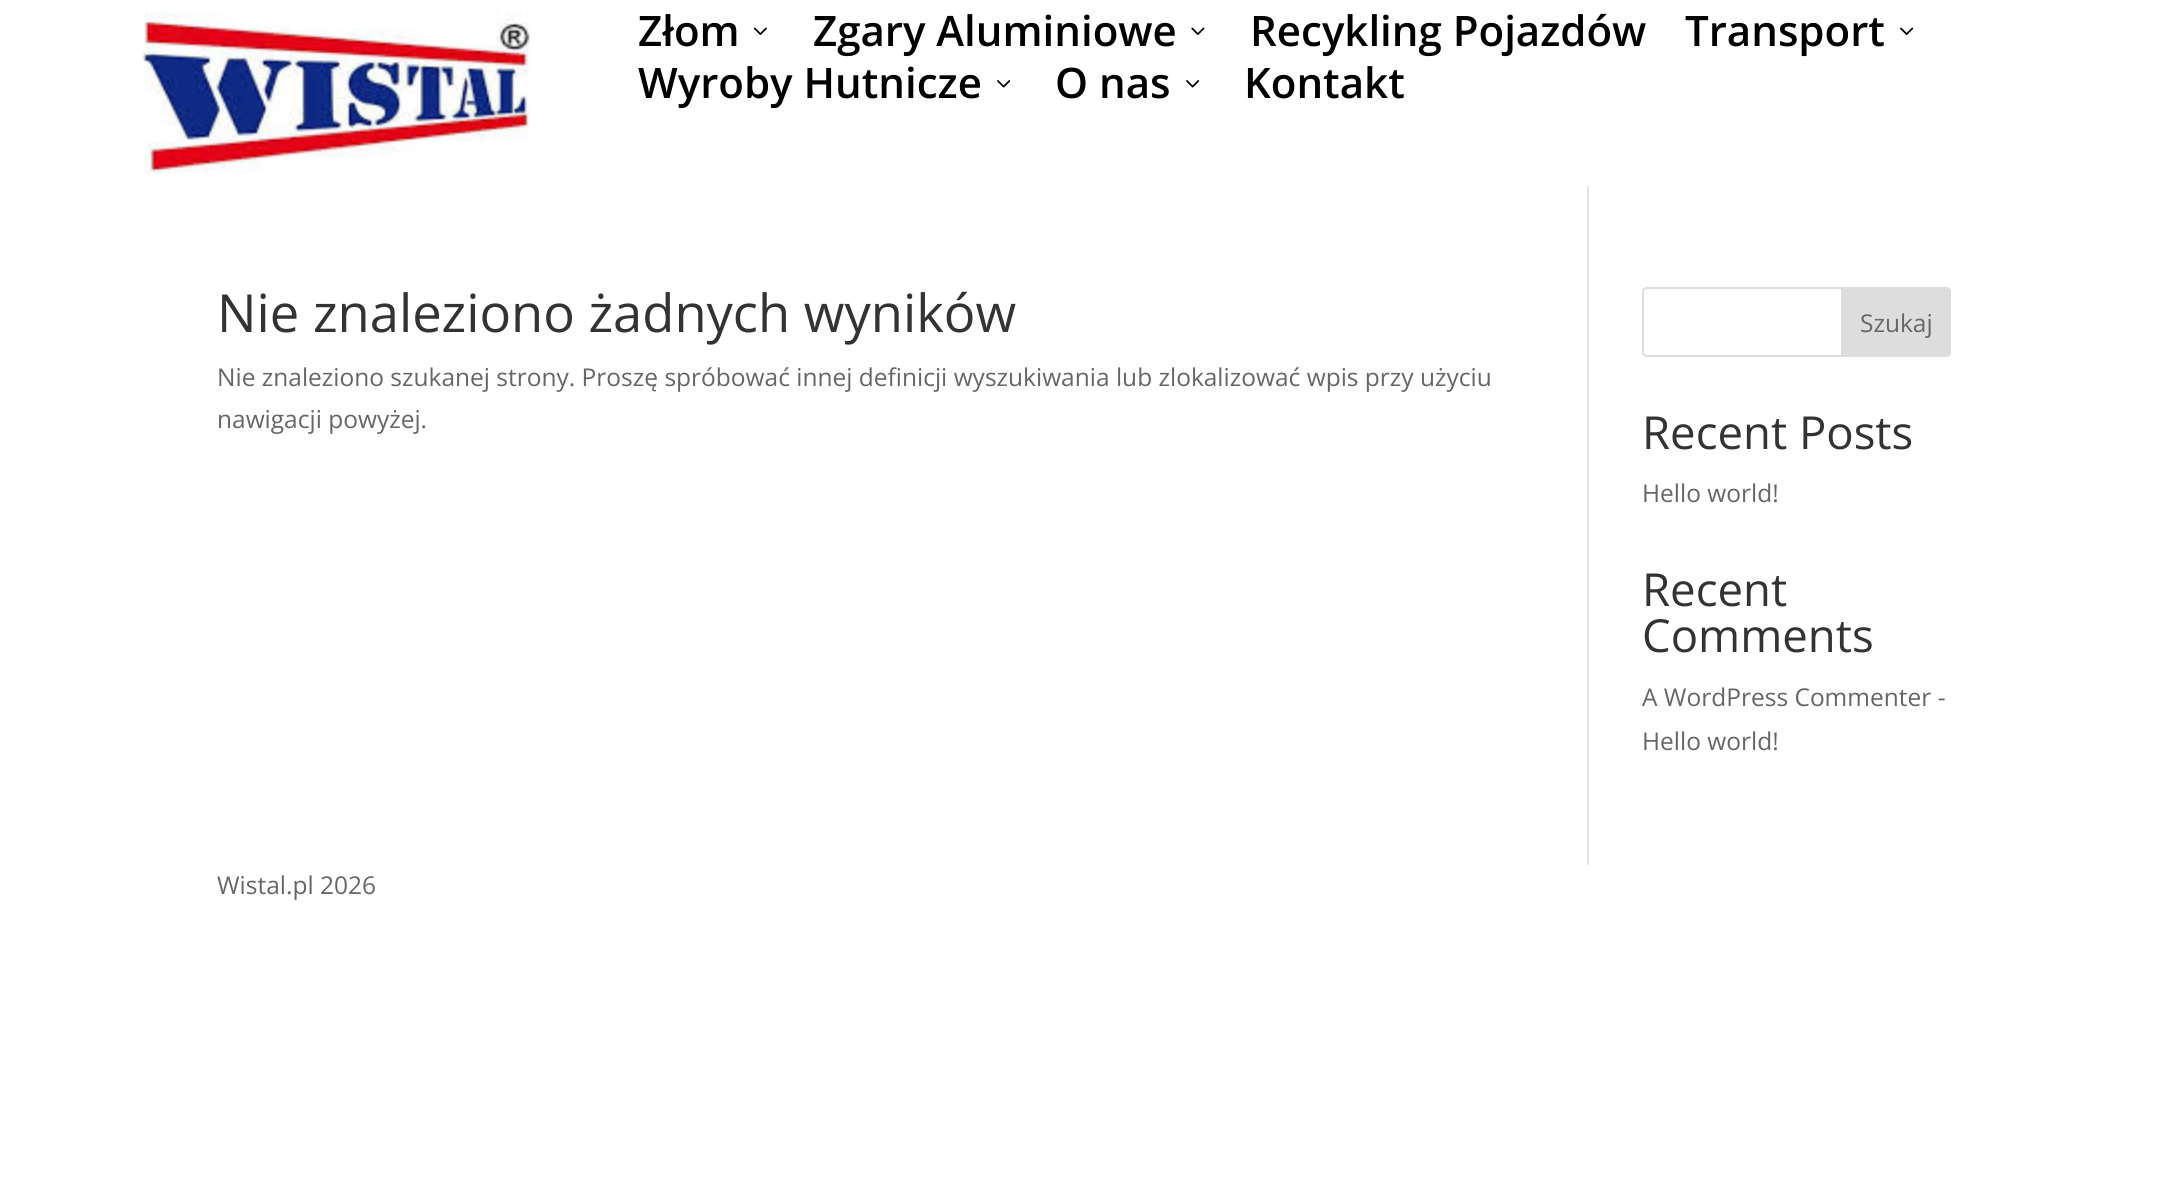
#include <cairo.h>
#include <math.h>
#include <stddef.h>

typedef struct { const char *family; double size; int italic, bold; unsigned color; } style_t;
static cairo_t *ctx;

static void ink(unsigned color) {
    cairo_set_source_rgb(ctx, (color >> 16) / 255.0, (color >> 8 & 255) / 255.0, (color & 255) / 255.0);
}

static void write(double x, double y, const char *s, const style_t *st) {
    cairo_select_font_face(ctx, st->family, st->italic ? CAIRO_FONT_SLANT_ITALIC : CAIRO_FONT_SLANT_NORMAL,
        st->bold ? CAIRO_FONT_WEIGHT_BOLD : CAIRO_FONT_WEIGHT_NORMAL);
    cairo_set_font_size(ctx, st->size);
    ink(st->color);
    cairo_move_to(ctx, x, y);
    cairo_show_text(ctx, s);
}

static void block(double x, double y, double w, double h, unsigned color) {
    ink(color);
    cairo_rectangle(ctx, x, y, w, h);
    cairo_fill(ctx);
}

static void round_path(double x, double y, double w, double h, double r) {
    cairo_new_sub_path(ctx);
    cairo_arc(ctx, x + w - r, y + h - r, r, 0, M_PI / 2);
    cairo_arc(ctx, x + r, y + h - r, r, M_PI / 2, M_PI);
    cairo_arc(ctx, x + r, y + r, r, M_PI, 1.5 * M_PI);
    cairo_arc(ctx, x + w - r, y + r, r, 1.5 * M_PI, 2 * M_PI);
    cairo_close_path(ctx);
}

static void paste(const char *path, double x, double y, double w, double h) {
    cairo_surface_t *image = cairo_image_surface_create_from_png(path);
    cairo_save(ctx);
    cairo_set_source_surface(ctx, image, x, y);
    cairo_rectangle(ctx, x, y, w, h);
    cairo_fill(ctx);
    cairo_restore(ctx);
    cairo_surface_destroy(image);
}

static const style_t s1 = {"Open Sans SemiBold", 42, 0, 0, 0x000000};
static const style_t s2 = {"Open Sans", 52.5, 0, 0, 0x333333};
static const style_t s3 = {"Open Sans", 24.5, 0, 0, 0x666666};
static const style_t s4 = {"Open Sans", 45.5, 0, 0, 0x333333};

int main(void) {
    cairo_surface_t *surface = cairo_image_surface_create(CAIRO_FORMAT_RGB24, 2167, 1181);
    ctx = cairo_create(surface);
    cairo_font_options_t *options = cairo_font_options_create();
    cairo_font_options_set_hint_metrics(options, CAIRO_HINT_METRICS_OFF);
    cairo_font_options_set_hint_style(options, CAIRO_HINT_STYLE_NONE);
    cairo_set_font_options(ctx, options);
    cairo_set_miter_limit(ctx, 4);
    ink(0xffffff);
    cairo_paint(ctx);
    paste("pic1.png", 142, 12, 388, 162);
    write(638, 46, "Złom", &s1);
    paste("pic2.png", 753, 27, 14, 8);
    write(813, 46, "Zgary Aluminiowe", &s1);
    paste("pic3.png", 1191, 27, 14, 8);
    write(1250, 46, "Recykling Pojazdów", &s1);
    write(1685, 46, "Transport", &s1);
    paste("pic4.png", 1900, 27, 14, 8);
    write(638, 98, "Wyroby Hutnicze", &s1);
    paste("pic5.png", 997, 80, 14, 8);
    write(1055, 98, "O nas", &s1);
    paste("pic5.png", 1186, 80, 14, 8);
    write(1244, 98, "Kontakt", &s1);
    block(1587, 186, 2, 679, 0xe2e2e2);
    write(217, 332, "Nie znaleziono żadnych wyników", &s2);
    write(217, 386, "Nie znaleziono szukanej strony. Proszę spróbować innej definicji wyszukiwania lub zlokalizować wpis przy użyciu", &s3);
    write(217, 428, "nawigacji powyżej.", &s3);
    round_path(1643, 288, 307, 68, 4);
    ink(0xdddddd);
    cairo_stroke(ctx);
    cairo_new_path(ctx);
    cairo_move_to(ctx, 1842, 288);
    cairo_line_to(ctx, 1946, 288);
    cairo_curve_to(ctx, 1948, 288, 1950, 290, 1950, 292);
    cairo_line_to(ctx, 1950, 352);
    cairo_curve_to(ctx, 1950, 354, 1948, 356, 1946, 356);
    cairo_line_to(ctx, 1842, 356);
    cairo_close_path(ctx);
    cairo_fill_preserve(ctx);
    cairo_stroke(ctx);
    write(1860, 332, "Szukaj", &s3);
    write(1642, 449, "Recent Posts", &s4);
    write(1642, 502, "Hello world!", &s3);
    write(1642, 606, "Recent", &s4);
    write(1642, 652, "Comments", &s4);
    write(1642, 706, "A WordPress Commenter -", &s3);
    write(1642, 750, "Hello world!", &s3);
    write(217, 894, "Wistal.pl 2026", &s3);
    cairo_surface_write_to_png(surface, "screenshot.png");
    cairo_font_options_destroy(options);
    cairo_destroy(ctx);
    cairo_surface_destroy(surface);
    return 0;
}
